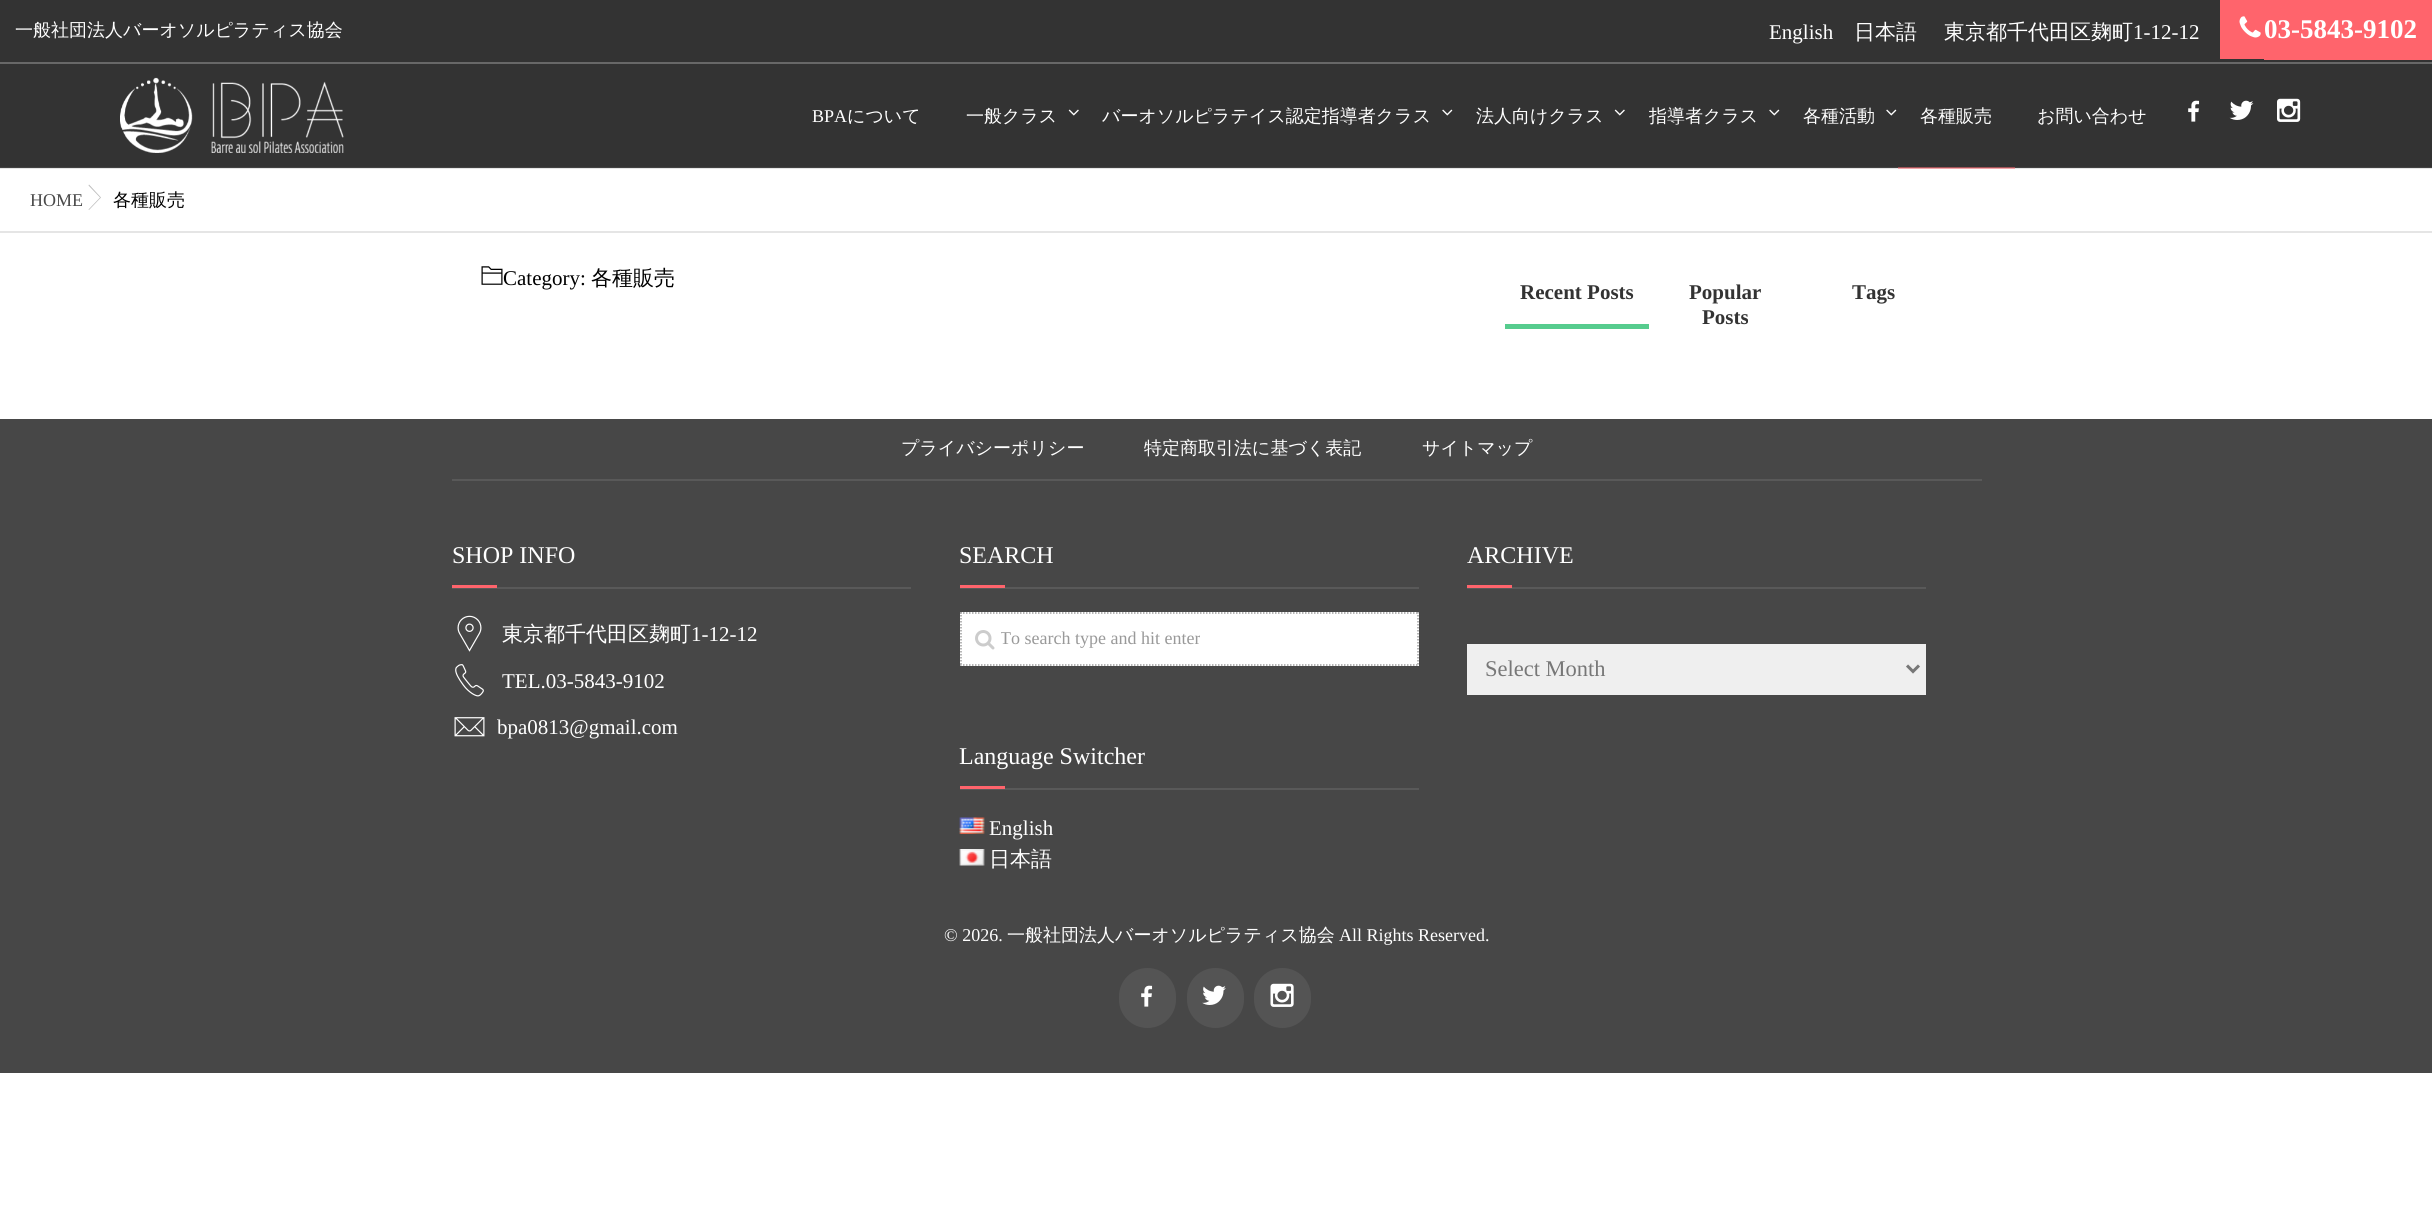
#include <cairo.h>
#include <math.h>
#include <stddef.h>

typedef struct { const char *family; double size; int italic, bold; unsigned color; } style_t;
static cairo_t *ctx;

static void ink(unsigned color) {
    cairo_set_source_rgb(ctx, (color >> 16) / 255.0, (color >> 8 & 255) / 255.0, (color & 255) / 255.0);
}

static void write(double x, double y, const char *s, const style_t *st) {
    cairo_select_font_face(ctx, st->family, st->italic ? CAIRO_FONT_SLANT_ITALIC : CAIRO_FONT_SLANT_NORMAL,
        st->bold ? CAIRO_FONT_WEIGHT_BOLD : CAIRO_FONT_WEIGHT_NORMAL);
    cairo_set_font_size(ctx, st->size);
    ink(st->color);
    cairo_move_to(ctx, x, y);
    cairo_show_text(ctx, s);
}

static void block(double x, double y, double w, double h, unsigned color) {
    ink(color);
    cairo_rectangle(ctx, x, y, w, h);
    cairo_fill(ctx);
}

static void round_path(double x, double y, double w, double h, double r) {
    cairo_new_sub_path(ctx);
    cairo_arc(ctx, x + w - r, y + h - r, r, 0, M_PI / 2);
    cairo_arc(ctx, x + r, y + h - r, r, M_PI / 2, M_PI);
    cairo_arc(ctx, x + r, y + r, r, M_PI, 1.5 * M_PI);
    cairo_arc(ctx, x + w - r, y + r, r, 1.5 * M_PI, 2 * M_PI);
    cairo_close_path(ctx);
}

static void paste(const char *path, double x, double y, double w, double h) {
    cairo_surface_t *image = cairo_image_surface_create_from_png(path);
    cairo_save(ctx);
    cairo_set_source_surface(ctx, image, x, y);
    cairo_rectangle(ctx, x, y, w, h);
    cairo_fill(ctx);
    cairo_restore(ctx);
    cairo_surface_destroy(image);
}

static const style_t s1 = {"WenQuanYi Zen Hei Medium", 18, 0, 0, 0xffffff};
static const style_t s2 = {"Liberation Serif", 21, 0, 0, 0xffffff};
static const style_t s3 = {"WenQuanYi Zen Hei Medium", 21, 0, 0, 0xffffff};
static const style_t s4 = {"Liberation Serif", 27, 0, 1, 0xffffff};
static const style_t s5 = {"Liberation Serif", 18, 0, 0, 0xffffff};
static const style_t s6 = {"Liberation Serif", 18, 0, 0, 0x4a4a4a};
static const style_t s7 = {"WenQuanYi Zen Hei Medium", 18, 0, 0, 0x000000};
static const style_t s8 = {"Liberation Serif", 21, 0, 0, 0x000000};
static const style_t s9 = {"WenQuanYi Zen Hei Medium", 21, 0, 0, 0x000000};
static const style_t s10 = {"Liberation Serif", 21, 0, 1, 0x333333};
static const style_t s11 = {"Liberation Serif", 24, 0, 0, 0xffffff};
static const style_t s12 = {"Liberation Serif", 18, 0, 0, 0x999999};
static const style_t s13 = {"Liberation Serif", 22.5, 0, 0, 0x777777};

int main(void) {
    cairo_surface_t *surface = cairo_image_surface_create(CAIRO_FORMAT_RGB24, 2432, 1213);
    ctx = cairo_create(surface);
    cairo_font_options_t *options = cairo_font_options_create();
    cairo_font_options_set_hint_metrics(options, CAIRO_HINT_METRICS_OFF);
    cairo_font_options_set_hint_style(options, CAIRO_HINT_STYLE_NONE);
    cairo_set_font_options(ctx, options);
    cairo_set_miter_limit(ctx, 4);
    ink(0xffffff);
    cairo_paint(ctx);
    block(0, 168, 2432, 1, 0xe5e5e5);
    block(1898, 168, 117, 1, 0xf2a5a9);
    block(0, 0, 2432, 167, 0x333333);
    block(0, 167, 2432, 1, 0x424242);
    block(1898, 167, 117, 1, 0xa15357);
    block(0, 62, 2432, 2, 0x686868);
    write(15, 36, "一般社団法人バーオソルピラティス協会", &s1);
    write(1769, 39, "English", &s2);
    write(1854, 39, "日本語", &s3);
    write(1944, 39, "東京都千代田区麹町", &s3);
    write(2133, 39, "1-12-12", &s2);
    block(2220, 0, 44, 59, 0xff646c);
    block(2264, 0, 168, 60, 0xff646c);
    paste("pic1.png", 2239, 16, 22, 22);
    write(2264, 38, "03-5843-9102", &s4);
    paste("pic2.png", 120, 77, 224, 76);
    write(812, 122, "BPA", &s5);
    write(847, 122, "について", &s1);
    write(966, 122, "一般クラス", &s1);
    paste("pic3.png", 1068, 109, 11, 7);
    write(1102, 122, "バーオソルピラテイス認定指導者クラス", &s1);
    paste("pic4.png", 1442, 109, 11, 7);
    write(1476, 122, "法人向けクラス", &s1);
    paste("pic3.png", 1614, 109, 11, 7);
    write(1649, 122, "指導者クラス", &s1);
    paste("pic4.png", 1769, 109, 11, 7);
    write(1803, 122, "各種活動", &s1);
    paste("pic4.png", 1886, 109, 11, 7);
    write(1920, 122, "各種販売", &s1);
    write(2037, 122, "お問い合わせ", &s1);
    paste("pic5.png", 2188, 100, 12, 22);
    paste("pic6.png", 2229, 100, 25, 20);
    paste("pic7.png", 2277, 98, 24, 24);
    block(0, 231, 2432, 2, 0xe5e5e5);
    write(30, 206, "HOME", &s6);
    ink(0xbcbcbc);
    cairo_new_path(ctx);
    cairo_move_to(ctx, 88.5, 185.5);
    cairo_line_to(ctx, 100, 197.5);
    cairo_line_to(ctx, 88.5, 209.5);
    cairo_line_to(ctx, 89, 210);
    cairo_line_to(ctx, 101, 197.5);
    cairo_line_to(ctx, 89, 184.5);
    cairo_close_path(ctx);
    cairo_fill(ctx);
    write(113, 206, "各種販売", &s7);
    paste("pic8.png", 481, 266, 22, 19);
    write(503, 285, "Category:", &s8);
    write(591, 285, "各種販売", &s9);
    block(1505, 324, 144, 5, 0x56cc8e);
    write(1520, 299, "Recent Posts", &s10);
    write(1689, 299, "Popular", &s10);
    write(1702, 324, "Posts", &s10);
    write(1852, 299, "Tags", &s10);
    block(0, 419, 2432, 654, 0x474747);
    block(452, 479, 1530, 2, 0x595959);
    write(901, 454, "プライバシーポリシー", &s1);
    write(1144, 454, "特定商取引法に基づく表記", &s1);
    write(1422, 454, "サイトマップ", &s1);
    block(452, 587, 459, 2, 0x595959);
    write(452, 563, "SHOP INFO", &s11);
    block(452, 585, 45, 3, 0xff646c);
    paste("pic9.png", 457, 615, 25, 37);
    write(502, 641, "東京都千代田区麹町", &s3);
    write(691, 641, "1-12-12", &s2);
    paste("pic10.png", 455, 664, 29, 33);
    write(502, 688, "TEL.03-5843-9102", &s2);
    paste("pic11.png", 454, 717, 31, 20);
    write(497, 734, "bpa0813@gmail.com", &s2);
    block(960, 587, 459, 2, 0x595959);
    write(959, 563, "SEARCH", &s11);
    block(960, 585, 45, 3, 0xff646c);
    block(960, 612, 459, 54, 0xffffff);
    paste("pic12.png", 975, 630, 20, 20);
    cairo_new_path(ctx);
    cairo_move_to(ctx, 960, 613);
    cairo_line_to(ctx, 1419, 613);
    ink(0x9e9e9e);
    cairo_set_line_width(ctx, 1.5);
    cairo_set_dash(ctx, (double[]){1.5, 1.5}, 2, 0);
    cairo_stroke(ctx);
    cairo_new_path(ctx);
    cairo_move_to(ctx, 1418, 612);
    cairo_line_to(ctx, 1418, 666);
    cairo_stroke(ctx);
    cairo_new_path(ctx);
    cairo_move_to(ctx, 960, 665);
    cairo_line_to(ctx, 1419, 665);
    cairo_stroke(ctx);
    cairo_new_path(ctx);
    cairo_move_to(ctx, 961, 612);
    cairo_line_to(ctx, 961, 666);
    cairo_stroke(ctx);
    cairo_save(ctx);
    cairo_rectangle(ctx, 1001, 624, 405, 30);
    cairo_clip(ctx);
    write(1000, 644, "To search type and hit enter", &s12);
    cairo_restore(ctx);
    block(960, 788, 459, 2, 0x595959);
    write(959, 764, "Language Switcher", &s11);
    block(960, 786, 45, 3, 0xff646c);
    paste("pic13.png", 959, 817, 26, 17);
    write(989, 835, "English", &s2);
    paste("pic14.png", 959, 849, 26, 17);
    write(989, 866, "日本語", &s3);
    block(1467, 587, 459, 2, 0x595959);
    write(1467, 563, "ARCHIVE", &s11);
    block(1467, 585, 45, 3, 0xff646c);
    block(1467, 644, 459, 51, 0xefefef);
    cairo_new_path(ctx);
    cairo_move_to(ctx, 1907, 665.5);
    cairo_line_to(ctx, 1913, 671.5);
    cairo_line_to(ctx, 1919, 665.5);
    ink(0x777777);
    cairo_set_line_width(ctx, 3);
    cairo_set_dash(ctx, NULL, 0, 0);
    cairo_stroke(ctx);
    write(1485, 676, "Select Month", &s13);
    write(944, 941, "© 2026.", &s5);
    write(1007, 941, "一般社団法人バーオソルピラティス協会", &s1);
    write(1339, 941, "All Rights Reserved.", &s5);
    ink(0x545454);
    round_path(1119, 968, 57, 60, 28.5);
    cairo_fill(ctx);
    paste("pic15.png", 1141, 985, 12, 22);
    round_path(1187, 968, 57, 60, 28.5);
    cairo_fill(ctx);
    paste("pic16.png", 1202, 985, 24, 20);
    round_path(1254, 968, 57, 60, 28.5);
    cairo_fill(ctx);
    paste("pic17.png", 1270, 983, 24, 24);
    cairo_surface_write_to_png(surface, "screenshot.png");
    cairo_font_options_destroy(options);
    cairo_destroy(ctx);
    cairo_surface_destroy(surface);
    return 0;
}
